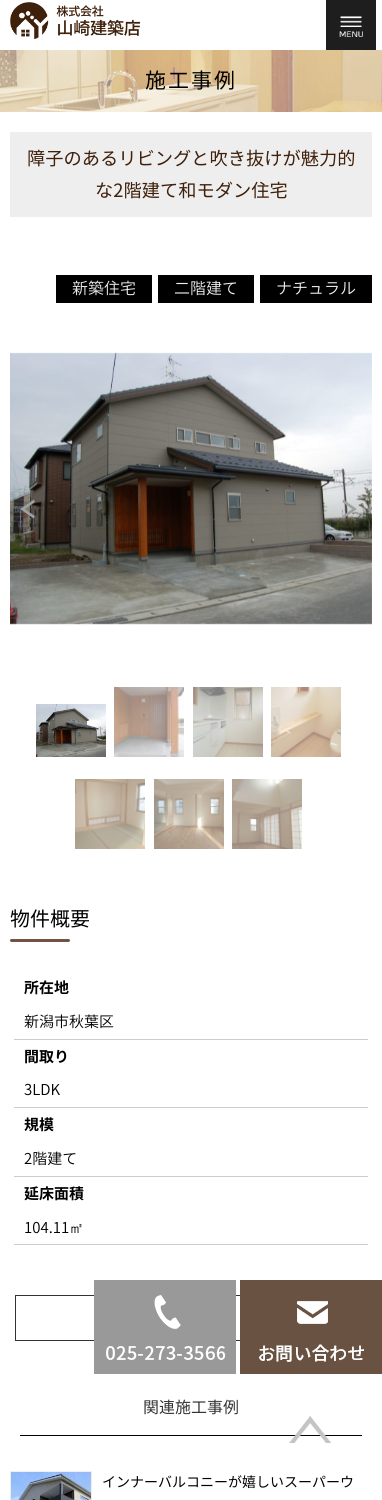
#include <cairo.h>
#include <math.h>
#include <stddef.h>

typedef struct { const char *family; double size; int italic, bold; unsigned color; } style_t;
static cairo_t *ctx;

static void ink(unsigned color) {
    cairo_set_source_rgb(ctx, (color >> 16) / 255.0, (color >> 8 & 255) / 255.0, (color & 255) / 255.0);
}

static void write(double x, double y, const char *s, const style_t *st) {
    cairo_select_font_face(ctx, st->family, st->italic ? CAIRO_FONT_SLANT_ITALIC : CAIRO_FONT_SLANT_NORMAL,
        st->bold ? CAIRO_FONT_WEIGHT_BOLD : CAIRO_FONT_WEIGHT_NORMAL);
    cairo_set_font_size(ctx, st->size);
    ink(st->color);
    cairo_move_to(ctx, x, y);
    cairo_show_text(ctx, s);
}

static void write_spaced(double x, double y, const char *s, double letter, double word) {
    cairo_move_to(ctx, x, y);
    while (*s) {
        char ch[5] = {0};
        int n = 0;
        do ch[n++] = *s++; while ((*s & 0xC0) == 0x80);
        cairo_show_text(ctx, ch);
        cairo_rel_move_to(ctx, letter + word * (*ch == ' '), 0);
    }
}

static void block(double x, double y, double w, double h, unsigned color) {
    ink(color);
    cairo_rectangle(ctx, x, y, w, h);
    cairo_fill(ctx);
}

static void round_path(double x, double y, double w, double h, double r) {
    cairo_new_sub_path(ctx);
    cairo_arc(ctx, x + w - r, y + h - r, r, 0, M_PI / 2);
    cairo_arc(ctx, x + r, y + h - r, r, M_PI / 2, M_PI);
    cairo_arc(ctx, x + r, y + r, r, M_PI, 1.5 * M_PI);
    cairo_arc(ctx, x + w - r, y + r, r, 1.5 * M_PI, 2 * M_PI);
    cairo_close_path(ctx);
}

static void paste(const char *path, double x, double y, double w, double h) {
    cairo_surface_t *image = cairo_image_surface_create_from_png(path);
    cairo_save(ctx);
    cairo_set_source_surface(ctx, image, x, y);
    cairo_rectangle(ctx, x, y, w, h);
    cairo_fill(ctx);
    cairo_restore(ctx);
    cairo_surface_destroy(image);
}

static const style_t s1 = {"Noto Sans CJK JP", 18.25, 0, 0, 0x3e200b};
static const style_t s2 = {"Noto Sans CJK JP Light", 16, 0, 0, 0xeeeeee};
static const style_t s3 = {"Noto Sans CJK JP", 20, 0, 0, 0x000000};
static const style_t s4 = {"Noto Sans CJK JP", 15, 0, 1, 0x000000};
static const style_t s5 = {"Noto Sans CJK JP Light", 15, 0, 0, 0x000000};
static const style_t s6 = {"WenQuanYi Zen Hei Medium", 15, 0, 0, 0x000000};
static const style_t s7 = {"Noto Sans CJK JP", 16, 0, 0, 0x333333};
static const style_t s8 = {"Noto Sans CJK JP", 14, 0, 0, 0x000000};

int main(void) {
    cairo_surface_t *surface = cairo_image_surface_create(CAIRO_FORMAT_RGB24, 382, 1500);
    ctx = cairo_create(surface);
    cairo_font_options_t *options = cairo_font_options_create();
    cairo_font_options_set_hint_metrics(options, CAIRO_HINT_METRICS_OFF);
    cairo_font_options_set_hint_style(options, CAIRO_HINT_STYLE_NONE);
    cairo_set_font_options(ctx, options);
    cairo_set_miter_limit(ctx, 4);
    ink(0xffffff);
    cairo_paint(ctx);
    paste("pic1.png", 10, 2, 130, 37);
    paste("pic2.png", 326, 0, 50, 50);
    paste("pic3.png", 0, 50, 382, 62);
    cairo_select_font_face(ctx, "Noto Sans CJK JP", CAIRO_FONT_SLANT_NORMAL, CAIRO_FONT_WEIGHT_NORMAL);
    cairo_set_font_size(ctx, 21);
    ink(0x000000);
    write_spaced(145, 88, "施工事例", 2, 0);
    block(10, 132, 362, 85, 0xeeeeee);
    write(27, 165, "障子のあるリビングと吹き抜けが魅力的", &s1);
    write(95, 197, "な2階建て和モダン住宅", &s1);
    block(56, 275, 96, 28, 0x000000);
    write(72, 294, "新築住宅", &s2);
    block(158, 275, 96, 28, 0x000000);
    write(174, 294, "二階建て", &s2);
    block(260, 275, 112, 28, 0x000000);
    write(276, 294, "ナチュラル", &s2);
    paste("pic4.png", 10, 352, 362, 273);
    paste("pic5.png", 20, 499, 15, 20);
    paste("pic6.png", 342, 499, 15, 20);
    paste("pic7.png", 36, 704, 70, 53);
    paste("pic8.png", 114, 687, 70, 70);
    paste("pic9.png", 193, 687, 70, 70);
    paste("pic10.png", 271, 687, 70, 70);
    paste("pic11.png", 75, 779, 70, 70);
    paste("pic12.png", 154, 779, 70, 70);
    paste("pic13.png", 232, 779, 70, 70);
    write(10, 926, "物件概要", &s3);
    ink(0x725242);
    round_path(10, 939, 60, 3, 1.5);
    cairo_fill(ctx);
    block(14, 1039, 354, 1, 0xcccccc);
    write(24, 993, "所在地", &s4);
    write(24, 1027, "新潟市秋葉区", &s5);
    block(14, 1107, 354, 1, 0xcccccc);
    write(24, 1062, "間取り", &s4);
    write(24, 1095, "3LDK", &s5);
    block(14, 1176, 354, 1, 0xcccccc);
    write(24, 1130, "規模", &s4);
    write(24, 1164, "2階建て", &s5);
    block(14, 1244, 354, 1, 0xcccccc);
    write(24, 1199, "延床面積", &s4);
    write(24, 1233, "104.11", &s5);
    write(69, 1233, "㎡", &s6);
    cairo_rectangle(ctx, 15.5, 1295.5, 351, 45);
    ink(0x333333);
    cairo_set_line_width(ctx, 1);
    cairo_stroke(ctx);
    write(143, 1413, "関連施工事例", &s7);
    block(20, 1435, 342, 1, 0x000000);
    cairo_rectangle(ctx, 10.5, 1471.5, 81, 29);
    ink(0xeeeeee);
    cairo_stroke(ctx);
    paste("pic14.png", 11, 1472, 80, 28);
    write(102, 1487, "インナーバルコニーが嬉しいスーパーウ", &s8);
    paste("pic15.png", 94, 1280, 142, 94);
    paste("pic16.png", 240, 1280, 142, 94);
    paste("pic17.png", 289, 1416, 42, 27);
    cairo_surface_write_to_png(surface, "screenshot.png");
    cairo_font_options_destroy(options);
    cairo_destroy(ctx);
    cairo_surface_destroy(surface);
    return 0;
}
